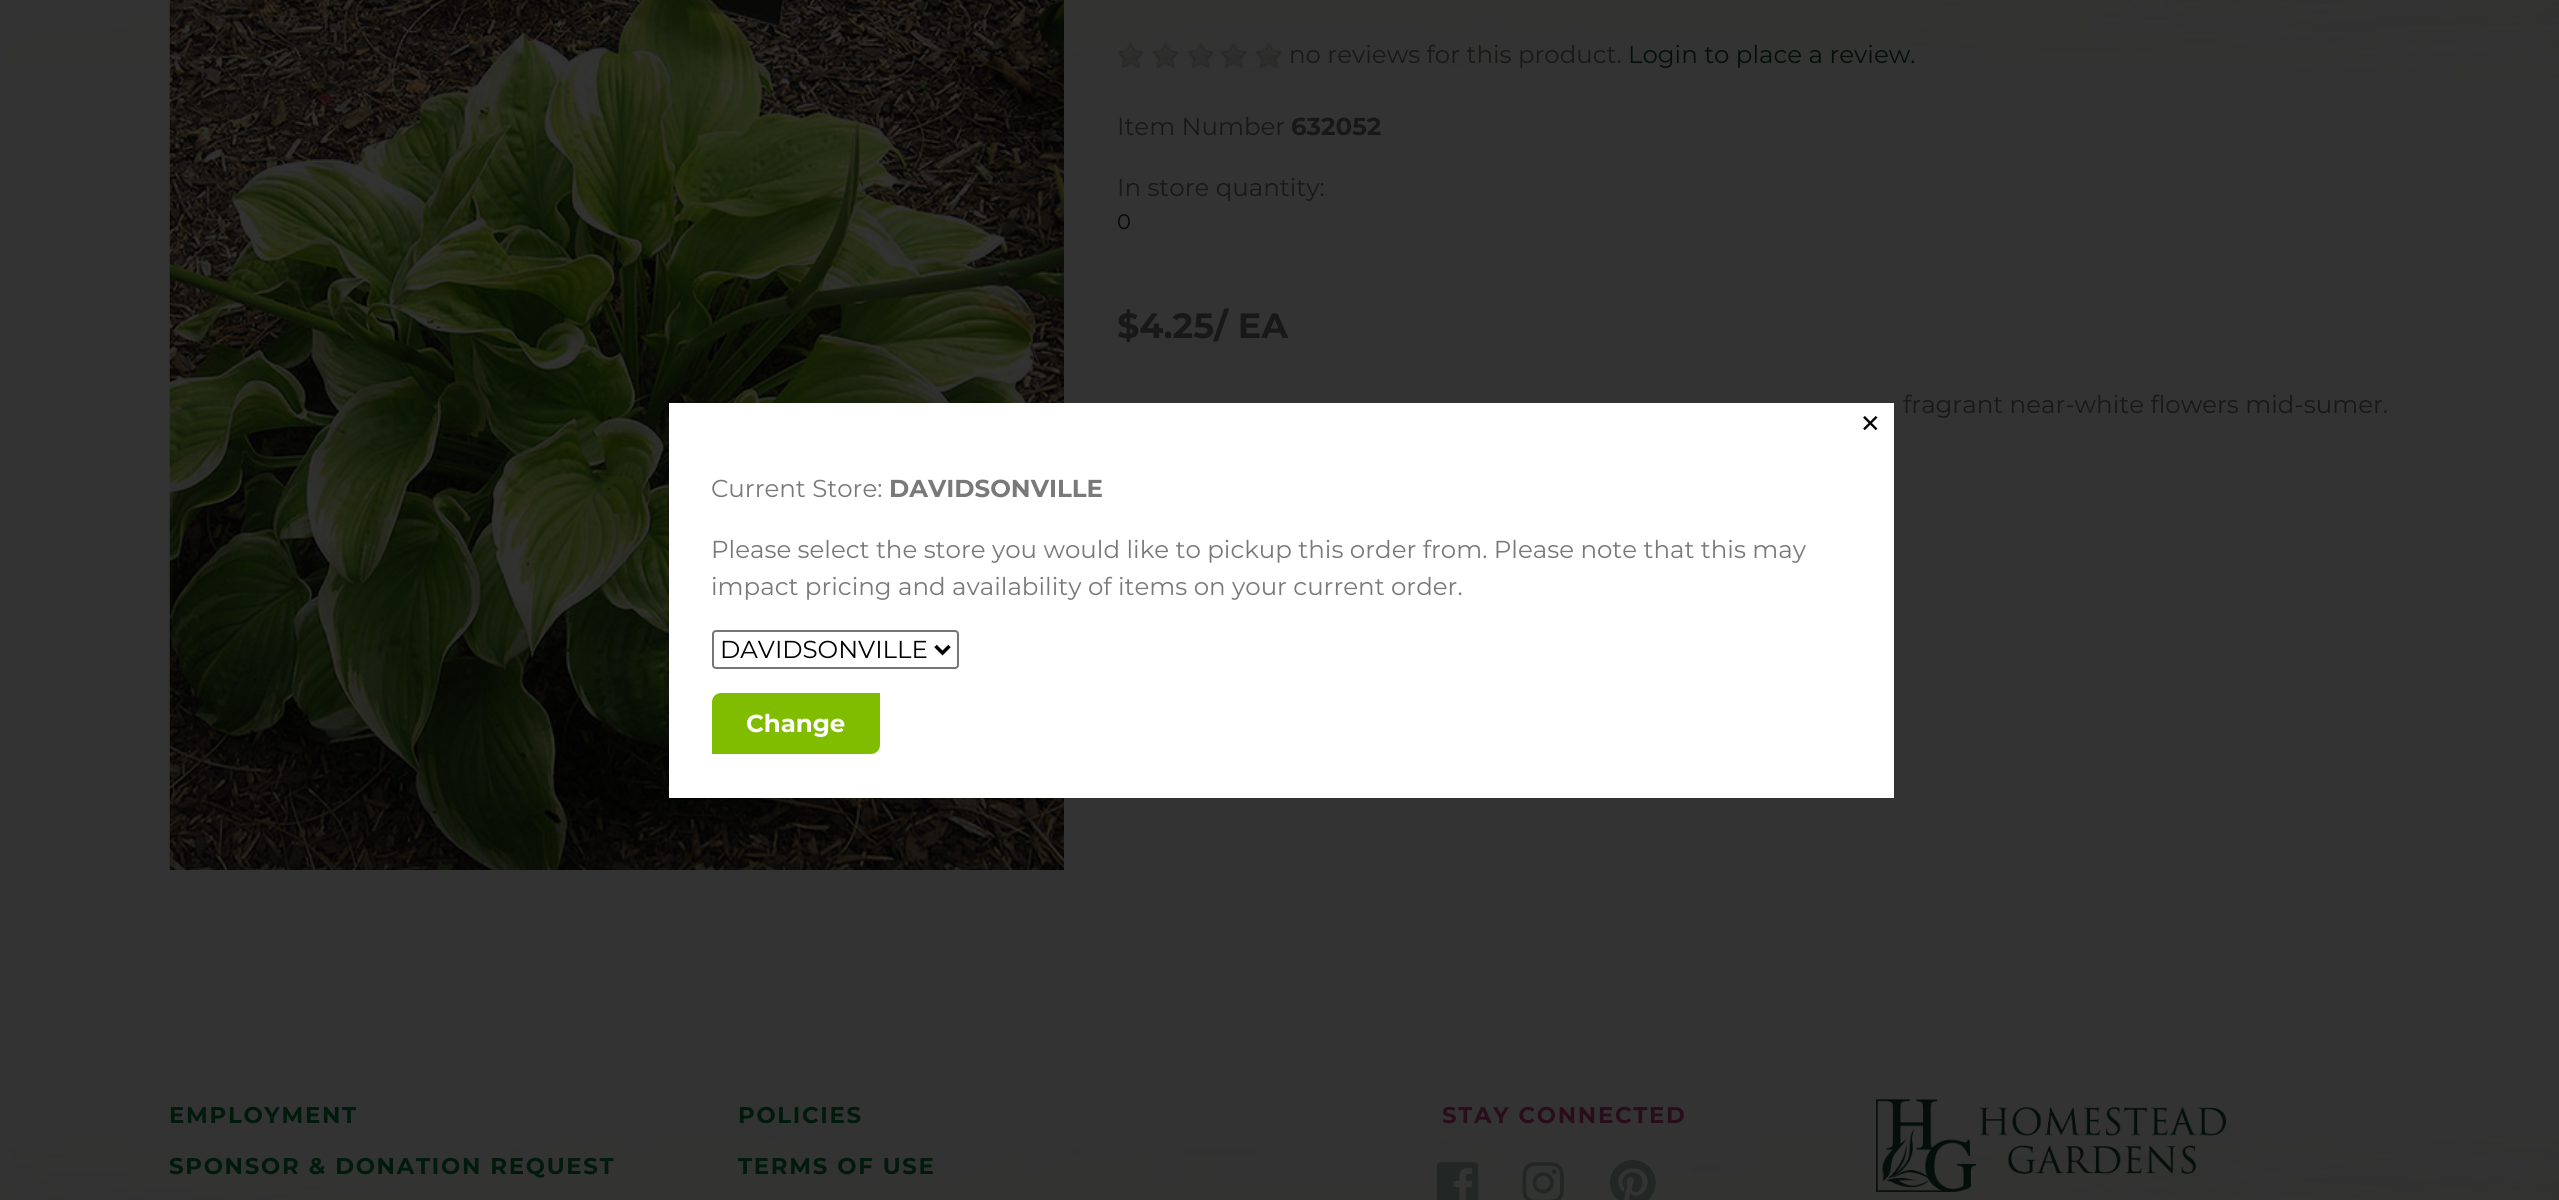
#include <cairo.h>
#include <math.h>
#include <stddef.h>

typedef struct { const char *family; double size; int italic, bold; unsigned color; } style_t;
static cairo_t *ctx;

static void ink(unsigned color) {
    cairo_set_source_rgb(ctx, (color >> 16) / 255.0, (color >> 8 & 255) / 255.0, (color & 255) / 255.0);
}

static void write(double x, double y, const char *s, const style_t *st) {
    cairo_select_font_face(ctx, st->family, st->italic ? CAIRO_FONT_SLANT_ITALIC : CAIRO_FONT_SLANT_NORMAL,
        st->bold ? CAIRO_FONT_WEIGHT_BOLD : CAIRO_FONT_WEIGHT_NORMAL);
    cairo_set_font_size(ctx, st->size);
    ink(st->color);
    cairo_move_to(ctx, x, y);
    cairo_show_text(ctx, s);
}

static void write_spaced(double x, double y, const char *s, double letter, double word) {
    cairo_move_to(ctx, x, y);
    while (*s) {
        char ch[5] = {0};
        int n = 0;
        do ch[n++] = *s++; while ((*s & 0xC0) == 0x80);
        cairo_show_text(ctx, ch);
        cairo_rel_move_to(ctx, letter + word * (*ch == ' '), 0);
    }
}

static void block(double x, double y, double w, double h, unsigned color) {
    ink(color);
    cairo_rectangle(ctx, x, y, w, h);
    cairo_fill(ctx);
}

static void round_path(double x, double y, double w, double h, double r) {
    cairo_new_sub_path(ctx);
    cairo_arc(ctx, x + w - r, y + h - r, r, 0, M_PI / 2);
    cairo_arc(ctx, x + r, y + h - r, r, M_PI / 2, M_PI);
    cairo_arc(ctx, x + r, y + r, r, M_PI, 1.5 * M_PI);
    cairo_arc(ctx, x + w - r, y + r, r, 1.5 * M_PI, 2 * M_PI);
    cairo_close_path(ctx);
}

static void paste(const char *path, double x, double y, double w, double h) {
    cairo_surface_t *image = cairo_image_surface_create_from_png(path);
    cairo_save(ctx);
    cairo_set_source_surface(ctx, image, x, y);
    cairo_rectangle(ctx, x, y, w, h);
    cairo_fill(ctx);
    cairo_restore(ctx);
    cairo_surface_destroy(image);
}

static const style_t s1 = {"Montserrat", 24.5, 0, 0, 0x181818};
static const style_t s2 = {"Montserrat", 24.5, 0, 0, 0x040e0a};
static const style_t s3 = {"Montserrat", 24.5, 0, 1, 0x181818};
static const style_t s4 = {"Montserrat", 21, 0, 0, 0x070708};
static const style_t s5 = {"Montserrat", 35, 0, 1, 0x181818};
static const style_t s6 = {"DejaVu Sans", 24.5, 0, 0, 0x000000};
static const style_t s7 = {"Montserrat", 24.5, 0, 0, 0x797979};
static const style_t s8 = {"Montserrat", 24.5, 0, 1, 0x797979};
static const style_t s9 = {"Montserrat", 24.5, 0, 0, 0x000000};
static const style_t s10 = {"Montserrat", 24.5, 0, 1, 0xffffff};

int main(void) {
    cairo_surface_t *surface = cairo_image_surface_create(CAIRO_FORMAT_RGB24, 2559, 1200);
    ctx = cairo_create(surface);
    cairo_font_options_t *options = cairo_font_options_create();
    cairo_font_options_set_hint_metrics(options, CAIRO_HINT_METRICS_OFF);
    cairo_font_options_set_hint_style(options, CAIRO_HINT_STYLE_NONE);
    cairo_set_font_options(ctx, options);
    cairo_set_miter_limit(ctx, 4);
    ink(0x333333);
    cairo_paint(ctx);
    paste("pic1.png", 0, 0, 2559, 79);
    paste("pic2.png", 169, 0, 895, 870);
    paste("pic3.png", 1117, 42, 28, 27);
    paste("pic4.png", 1152, 42, 28, 27);
    paste("pic5.png", 1187, 42, 28, 27);
    paste("pic6.png", 1220, 42, 28, 27);
    paste("pic7.png", 1255, 42, 28, 27);
    write(1289, 63, "no reviews for this product.", &s1);
    write(1628, 63, "Login to place a review.", &s2);
    write(1117, 135, "Item Number", &s1);
    write(1291, 135, "632052", &s3);
    write(1117, 196, "In store quantity:", &s1);
    write(1117, 229, "0", &s4);
    write(1117, 338, "$4.25/ EA", &s5);
    write(1903, 413, "fragrant near-white flowers mid-sumer.", &s1);
    paste("pic8.png", 0, 1132, 2559, 68);
    cairo_select_font_face(ctx, "Montserrat", CAIRO_FONT_SLANT_NORMAL, CAIRO_FONT_WEIGHT_BOLD);
    cairo_set_font_size(ctx, 22.75);
    ink(0x001a0c);
    write_spaced(169, 1123, "EMPLOYMENT", 1.75, 0);
    write_spaced(169, 1174, "SPONSOR & DONATION REQUEST", 1.75, 0);
    write_spaced(738, 1123, "POLICIES", 1.75, 0);
    write_spaced(738, 1174, "TERMS OF USE", 1.75, 0);
    ink(0x290d1b);
    write_spaced(1442, 1123, "STAY CONNECTED", 1.75, 0);
    paste("pic9.png", 1436, 1162, 43, 38);
    paste("pic10.png", 1522, 1162, 42, 38);
    paste("pic11.png", 1610, 1159, 46, 41);
    paste("pic12.png", 1876, 1099, 350, 93);
    block(669, 403, 1225, 395, 0xffffff);
    write(1860, 432, "✕", &s6);
    write(711, 497, "Current Store:", &s7);
    write(889, 497, "DAVIDSONVILLE", &s8);
    write(711, 558, "Please select the store you would like to pickup this order from. Please note that this may", &s7);
    write(711, 595, "impact pricing and availability of items on your current order.", &s7);
    round_path(713, 631, 245, 37, 3);
    ink(0x767676);
    cairo_stroke(ctx);
    cairo_new_path(ctx);
    cairo_move_to(ctx, 935.5, 646);
    cairo_line_to(ctx, 942.5, 653);
    cairo_line_to(ctx, 949.5, 646);
    ink(0x000000);
    cairo_set_line_width(ctx, 3.5);
    cairo_stroke(ctx);
    write(720, 658, "DAVIDSONVILLE", &s9);
    ink(0x80bc00);
    cairo_new_path(ctx);
    cairo_move_to(ctx, 721, 693);
    cairo_line_to(ctx, 880, 693);
    cairo_line_to(ctx, 880, 745);
    cairo_curve_to(ctx, 880, 750, 876, 754, 871, 754);
    cairo_line_to(ctx, 712, 754);
    cairo_line_to(ctx, 712, 702);
    cairo_curve_to(ctx, 712, 697, 716, 693, 721, 693);
    cairo_close_path(ctx);
    cairo_fill(ctx);
    write(746, 732, "Change", &s10);
    cairo_surface_write_to_png(surface, "screenshot.png");
    cairo_font_options_destroy(options);
    cairo_destroy(ctx);
    cairo_surface_destroy(surface);
    return 0;
}
